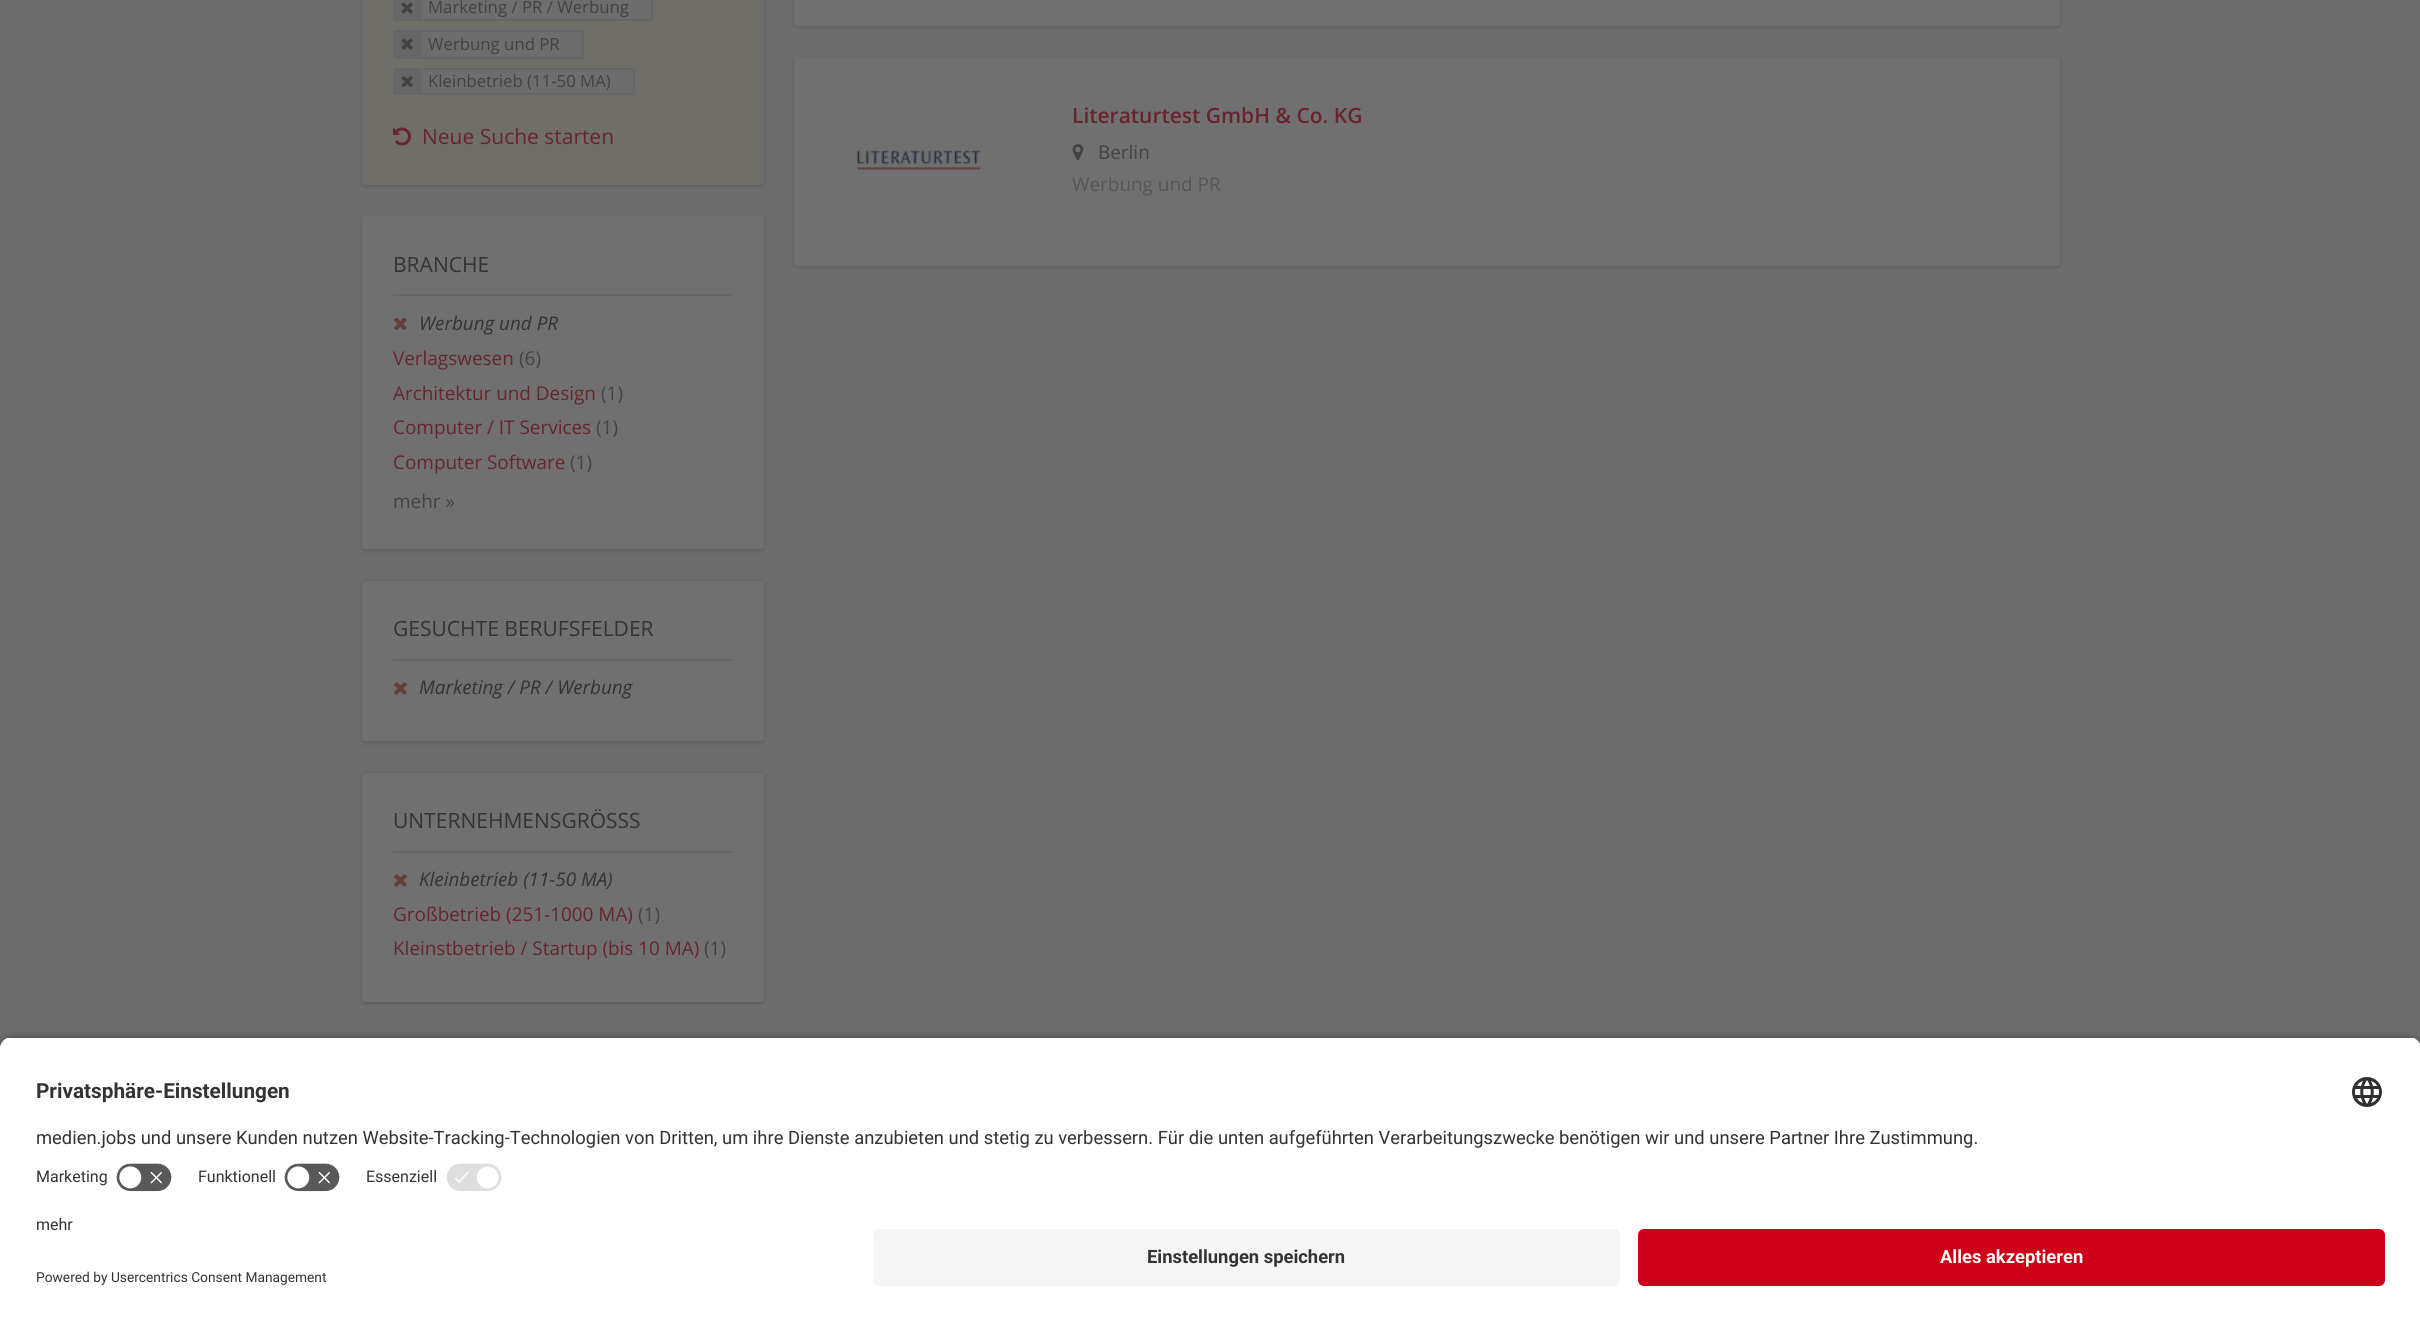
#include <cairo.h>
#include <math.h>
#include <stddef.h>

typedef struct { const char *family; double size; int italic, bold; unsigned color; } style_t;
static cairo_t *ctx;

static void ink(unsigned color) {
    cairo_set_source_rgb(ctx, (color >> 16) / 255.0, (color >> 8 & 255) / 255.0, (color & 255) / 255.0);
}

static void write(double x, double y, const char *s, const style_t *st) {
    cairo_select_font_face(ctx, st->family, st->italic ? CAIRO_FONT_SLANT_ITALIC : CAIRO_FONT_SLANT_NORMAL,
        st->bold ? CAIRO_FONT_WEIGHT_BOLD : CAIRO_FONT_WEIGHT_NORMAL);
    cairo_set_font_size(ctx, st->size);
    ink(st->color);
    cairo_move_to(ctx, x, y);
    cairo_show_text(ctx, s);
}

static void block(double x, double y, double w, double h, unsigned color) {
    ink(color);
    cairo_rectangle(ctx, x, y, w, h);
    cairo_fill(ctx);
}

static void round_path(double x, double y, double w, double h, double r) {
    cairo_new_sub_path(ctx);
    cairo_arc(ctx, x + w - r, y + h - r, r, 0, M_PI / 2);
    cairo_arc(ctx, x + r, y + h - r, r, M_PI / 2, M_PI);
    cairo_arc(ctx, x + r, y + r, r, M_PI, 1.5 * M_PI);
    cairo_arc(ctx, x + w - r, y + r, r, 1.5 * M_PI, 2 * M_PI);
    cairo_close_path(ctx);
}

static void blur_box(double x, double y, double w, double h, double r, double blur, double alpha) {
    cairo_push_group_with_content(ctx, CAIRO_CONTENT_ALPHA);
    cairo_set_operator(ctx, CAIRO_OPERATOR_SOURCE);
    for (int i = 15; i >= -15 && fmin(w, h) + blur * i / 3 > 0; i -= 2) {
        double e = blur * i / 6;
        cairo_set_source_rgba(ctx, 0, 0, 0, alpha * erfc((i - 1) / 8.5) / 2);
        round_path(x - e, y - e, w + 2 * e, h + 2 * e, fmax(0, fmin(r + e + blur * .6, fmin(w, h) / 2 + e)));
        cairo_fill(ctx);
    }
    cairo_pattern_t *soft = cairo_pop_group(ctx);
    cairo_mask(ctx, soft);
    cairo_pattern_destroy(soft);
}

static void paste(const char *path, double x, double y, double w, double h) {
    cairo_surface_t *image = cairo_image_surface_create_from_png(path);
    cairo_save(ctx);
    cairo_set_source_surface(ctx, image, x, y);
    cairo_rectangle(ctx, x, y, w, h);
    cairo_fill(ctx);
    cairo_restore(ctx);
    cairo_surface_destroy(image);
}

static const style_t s1 = {"Open Sans", 16.75, 0, 0, 0x424242};
static const style_t s2 = {"Open Sans", 21, 0, 0, 0x68242c};
static const style_t s3 = {"Open Sans", 21, 0, 0, 0x333333};
static const style_t s4 = {"Open Sans", 18.9, 1, 0, 0x333333};
static const style_t s5 = {"Open Sans", 18.9, 0, 0, 0x68242c};
static const style_t s6 = {"Open Sans", 18.9, 0, 0, 0x424242};
static const style_t s7 = {"Open Sans SemiBold", 21, 0, 0, 0x68242c};
static const style_t s8 = {"Open Sans", 18.9, 0, 0, 0x565656};
static const style_t s9 = {"Roboto", 20.75, 0, 1, 0x333333};
static const style_t s10 = {"Roboto", 18.38, 0, 0, 0x333333};
static const style_t s11 = {"Roboto", 16, 0, 0, 0x333333};
static const style_t s12 = {"Roboto", 13.75, 0, 0, 0x333333};
static const style_t s13 = {"Roboto", 18.38, 0, 1, 0x333333};
static const style_t s14 = {"Roboto", 18.38, 0, 1, 0xfafafa};

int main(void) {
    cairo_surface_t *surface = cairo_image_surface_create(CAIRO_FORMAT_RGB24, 2420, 1321);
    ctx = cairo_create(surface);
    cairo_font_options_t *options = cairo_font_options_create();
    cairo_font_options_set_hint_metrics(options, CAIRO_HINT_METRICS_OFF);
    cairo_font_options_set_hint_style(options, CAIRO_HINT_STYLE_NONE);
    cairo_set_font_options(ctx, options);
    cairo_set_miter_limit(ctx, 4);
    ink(0x6d6d6d);
    cairo_paint(ctx);
    ink(0x242424);
    blur_box(362, -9, 402, 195, 3, 2, 0.25);
    ink(0x6f6e68);
    round_path(362, -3, 402, 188, 3);
    cairo_fill(ctx);
    ink(0x6d6d6d);
    round_path(394, -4, 258, 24, 2);
    cairo_fill_preserve(ctx);
    ink(0x666666);
    cairo_stroke(ctx);
    block(395, 0, 27, 19, 0x666666);
    paste("pic1.png", 401, 2, 12, 12);
    write(428, 13, "Marketing / PR / Werbung", &s1);
    ink(0x6d6d6d);
    round_path(394, 31, 189, 27, 2);
    cairo_fill_preserve(ctx);
    ink(0x666666);
    cairo_stroke(ctx);
    block(395, 32, 27, 25, 0x666666);
    paste("pic1.png", 401, 38, 12, 12);
    write(428, 50, "Werbung und PR", &s1);
    ink(0x6d6d6d);
    round_path(394, 69, 240, 25, 2);
    cairo_fill_preserve(ctx);
    ink(0x666666);
    cairo_stroke(ctx);
    block(395, 70, 27, 23, 0x666666);
    paste("pic2.png", 401, 76, 12, 12);
    write(428, 87, "Kleinbetrieb (11-50 MA)", &s1);
    paste("pic3.png", 393, 127, 18, 19);
    write(422, 144, "Neue Suche starten", &s2);
    ink(0x242424);
    blur_box(362, 218, 402, 333, 3, 2, 0.25);
    ink(0x707070);
    round_path(362, 216, 402, 333, 3);
    cairo_fill(ctx);
    block(393, 294, 339, 2, 0x666666);
    write(393, 272, "BRANCHE", &s3);
    paste("pic4.png", 394, 317, 13, 14);
    write(419, 330, "Werbung und PR", &s4);
    write(393, 365, "Verlagswesen", &s5);
    write(519, 365, "(6)", &s6);
    write(393, 400, "Architektur und Design", &s5);
    write(601, 400, "(1)", &s6);
    write(393, 434, "Computer / IT Services", &s5);
    write(596, 434, "(1)", &s6);
    write(393, 469, "Computer Software", &s5);
    write(570, 469, "(1)", &s6);
    write(393, 508, "mehr »", &s6);
    ink(0x242424);
    blur_box(362, 582, 402, 161, 3, 2, 0.25);
    ink(0x707070);
    round_path(362, 581, 402, 160, 3);
    cairo_fill(ctx);
    block(393, 659, 339, 2, 0x666666);
    write(393, 636, "GESUCHTE BERUFSFELDER", &s3);
    paste("pic5.png", 394, 682, 13, 13);
    write(419, 694, "Marketing / PR / Werbung", &s4);
    ink(0x242424);
    blur_box(362, 774, 402, 230, 3, 2, 0.25);
    ink(0x707070);
    round_path(362, 773, 402, 229, 3);
    cairo_fill(ctx);
    block(393, 851, 339, 2, 0x666666);
    write(393, 828, "UNTERNEHMENSGRÖSSS", &s3);
    paste("pic5.png", 394, 874, 13, 13);
    write(419, 886, "Kleinbetrieb (11-50 MA)", &s4);
    write(393, 921, "Großbetrieb (251-1000 MA)", &s5);
    write(638, 921, "(1)", &s6);
    write(393, 955, "Kleinstbetrieb / Startup (bis 10 MA)", &s5);
    write(704, 955, "(1)", &s6);
    ink(0x242424);
    blur_box(794, -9, 1266, 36, 3, 2, 0.25);
    ink(0x707070);
    round_path(794, -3, 1266, 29, 3);
    cairo_fill(ctx);
    ink(0x242424);
    blur_box(794, 59, 1266, 208, 3, 2, 0.25);
    ink(0x707070);
    round_path(794, 57, 1266, 209, 3);
    cairo_fill(ctx);
    paste("pic6.png", 856, 150, 125, 20);
    write(1072, 123, "Literaturtest GmbH & Co. KG", &s7);
    paste("pic7.png", 1072, 144, 12, 17);
    write(1098, 159, "Berlin", &s6);
    write(1072, 191, "Werbung und PR", &s8);
    ink(0x000000);
    blur_box(0, 1041, 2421, 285, 12, 5, 0.8);
    cairo_save(ctx);
    cairo_new_path(ctx);
    cairo_move_to(ctx, 12, 1037);
    cairo_line_to(ctx, 2409, 1037);
    cairo_curve_to(ctx, 2415.5, 1037, 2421, 1042.5, 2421, 1049);
    cairo_line_to(ctx, 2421, 1217);
    cairo_line_to(ctx, 0, 1217);
    cairo_line_to(ctx, 0, 1049);
    cairo_curve_to(ctx, 0, 1042.5, 5.5, 1037, 12, 1037);
    cairo_close_path(ctx);
    cairo_clip(ctx);
    block(0, 1038, 2420, 179, 0xffffff);
    block(0, 1038, 2420, 119, 0xffffff);
    cairo_restore(ctx);
    write(36, 1098, "Privatsphäre-Einstellungen", &s9);
    paste("pic8.png", 2352, 1077, 30, 30);
    write(36, 1144, "medien.jobs und unsere Kunden nutzen Website-Tracking-Technologien von Dritten, um ihre Dienste anzubieten und stetig zu verbessern. Für die unten aufgeführten Verarbeitungszwecke benötigen wir und unsere Partner Ihre Zustimmung.", &s10);
    write(36, 1182, "Marketing", &s11);
    paste("pic9.png", 116, 1163, 56, 29);
    write(198, 1182, "Funktionell", &s11);
    paste("pic9.png", 284, 1163, 56, 29);
    write(366, 1182, "Essenziell", &s11);
    paste("pic10.png", 446, 1163, 56, 28);
    block(0, 1217, 2420, 104, 0xffffff);
    write(36, 1230, "mehr", &s11);
    write(36, 1282, "Powered by Usercentrics Consent Management", &s12);
    ink(0xf5f5f5);
    round_path(873, 1229, 747, 57, 6);
    cairo_fill(ctx);
    write(1147, 1263, "Einstellungen speichern", &s13);
    ink(0xcd0018);
    round_path(1638, 1229, 747, 57, 6);
    cairo_fill(ctx);
    write(1940, 1263, "Alles akzeptieren", &s14);
    cairo_surface_write_to_png(surface, "screenshot.png");
    cairo_font_options_destroy(options);
    cairo_destroy(ctx);
    cairo_surface_destroy(surface);
    return 0;
}
